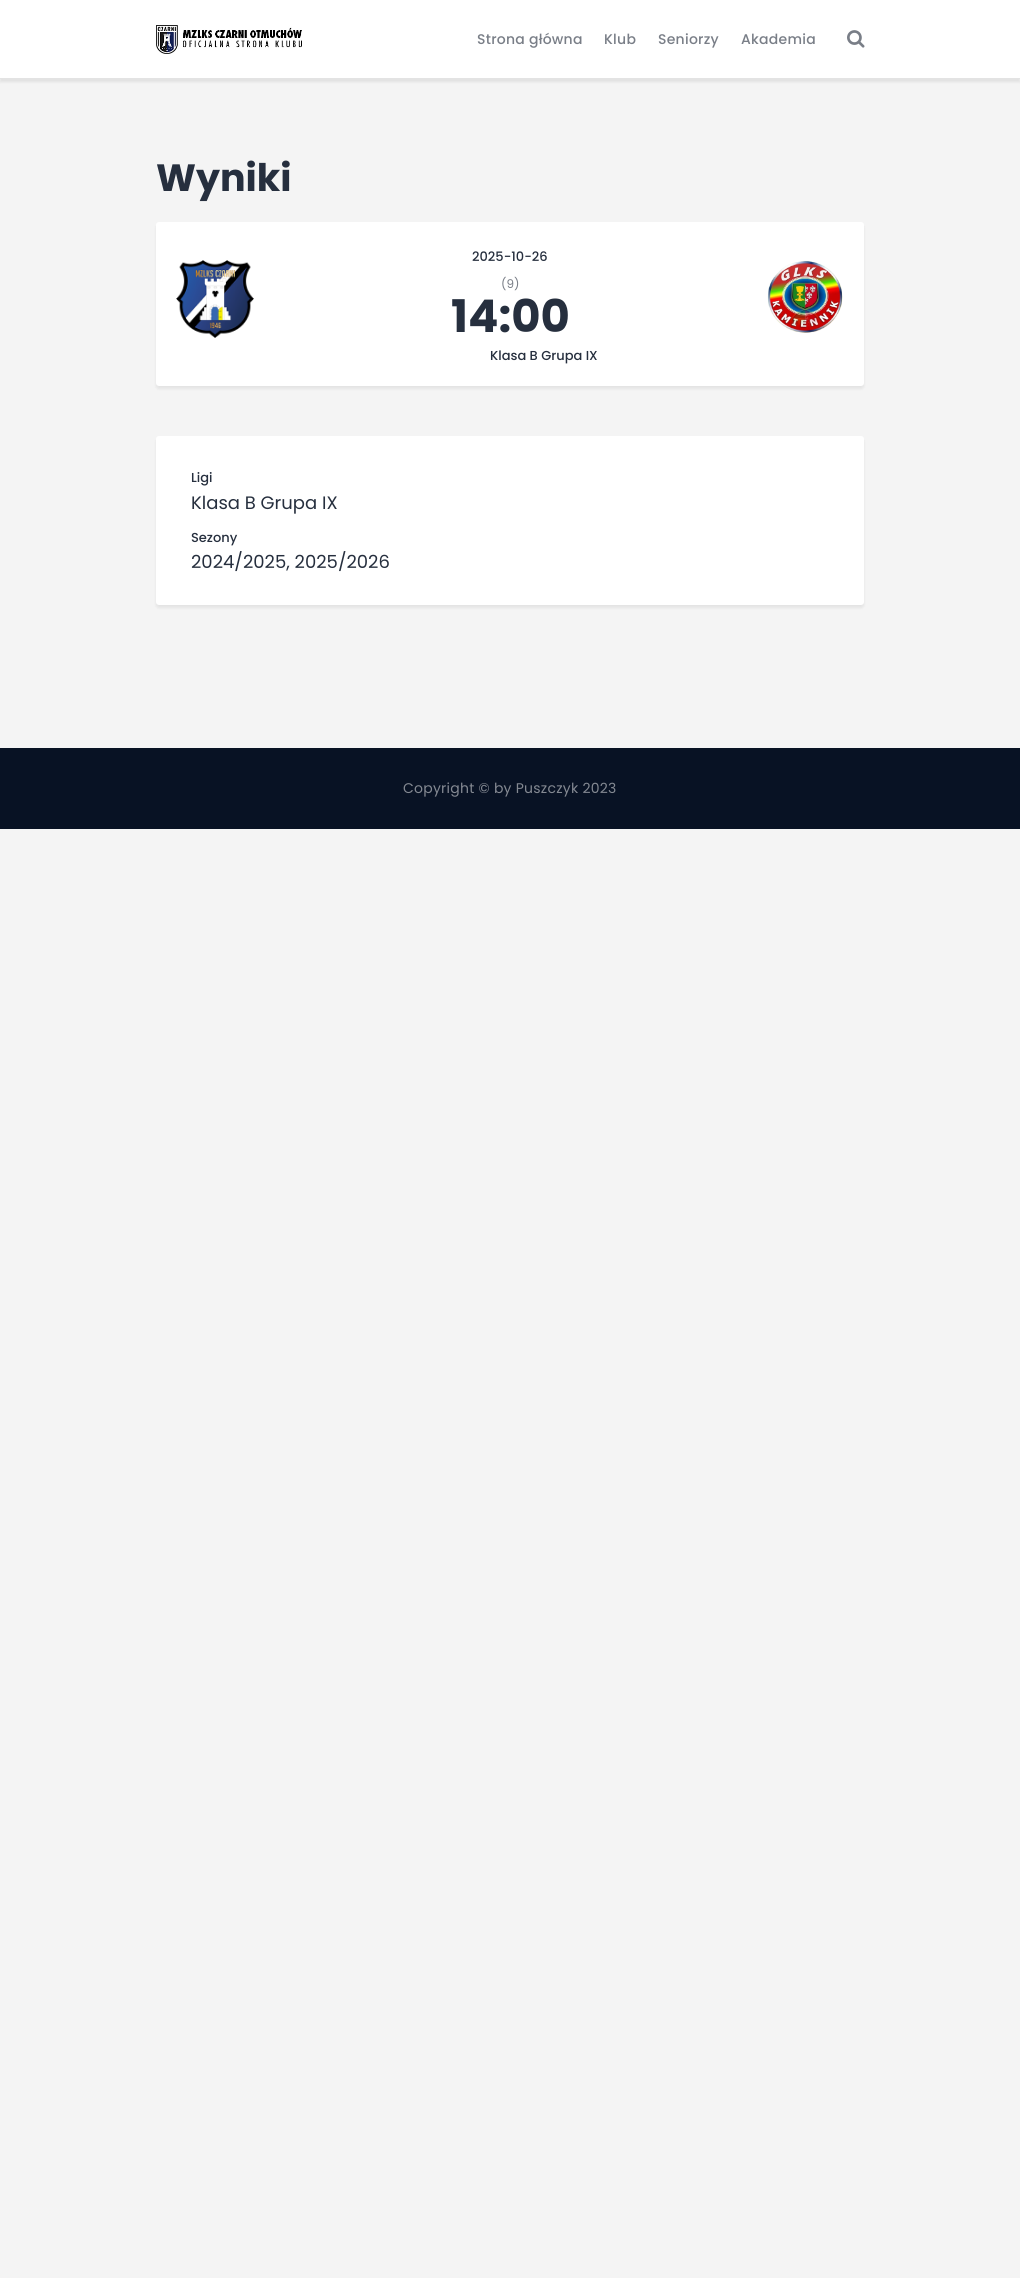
#include <cairo.h>
#include <math.h>
#include <stddef.h>

typedef struct { const char *family; double size; int italic, bold; unsigned color; } style_t;
static cairo_t *ctx;

static void ink(unsigned color) {
    cairo_set_source_rgb(ctx, (color >> 16) / 255.0, (color >> 8 & 255) / 255.0, (color & 255) / 255.0);
}

static void write(double x, double y, const char *s, const style_t *st) {
    cairo_select_font_face(ctx, st->family, st->italic ? CAIRO_FONT_SLANT_ITALIC : CAIRO_FONT_SLANT_NORMAL,
        st->bold ? CAIRO_FONT_WEIGHT_BOLD : CAIRO_FONT_WEIGHT_NORMAL);
    cairo_set_font_size(ctx, st->size);
    ink(st->color);
    cairo_move_to(ctx, x, y);
    cairo_show_text(ctx, s);
}

static void write_spaced(double x, double y, const char *s, double letter, double word) {
    cairo_move_to(ctx, x, y);
    while (*s) {
        char ch[5] = {0};
        int n = 0;
        do ch[n++] = *s++; while ((*s & 0xC0) == 0x80);
        cairo_show_text(ctx, ch);
        cairo_rel_move_to(ctx, letter + word * (*ch == ' '), 0);
    }
}

static void block(double x, double y, double w, double h, unsigned color) {
    ink(color);
    cairo_rectangle(ctx, x, y, w, h);
    cairo_fill(ctx);
}

static void round_path(double x, double y, double w, double h, double r) {
    cairo_new_sub_path(ctx);
    cairo_arc(ctx, x + w - r, y + h - r, r, 0, M_PI / 2);
    cairo_arc(ctx, x + r, y + h - r, r, M_PI / 2, M_PI);
    cairo_arc(ctx, x + r, y + r, r, M_PI, 1.5 * M_PI);
    cairo_arc(ctx, x + w - r, y + r, r, 1.5 * M_PI, 2 * M_PI);
    cairo_close_path(ctx);
}

static void blur_box(double x, double y, double w, double h, double r, double blur, double alpha) {
    cairo_push_group_with_content(ctx, CAIRO_CONTENT_ALPHA);
    cairo_set_operator(ctx, CAIRO_OPERATOR_SOURCE);
    for (int i = 15; i >= -15 && fmin(w, h) + blur * i / 3 > 0; i -= 2) {
        double e = blur * i / 6;
        cairo_set_source_rgba(ctx, 0, 0, 0, alpha * erfc((i - 1) / 8.5) / 2);
        round_path(x - e, y - e, w + 2 * e, h + 2 * e, fmax(0, fmin(r + e + blur * .6, fmin(w, h) / 2 + e)));
        cairo_fill(ctx);
    }
    cairo_pattern_t *soft = cairo_pop_group(ctx);
    cairo_mask(ctx, soft);
    cairo_pattern_destroy(soft);
}

static void paste(const char *path, double x, double y, double w, double h) {
    cairo_surface_t *image = cairo_image_surface_create_from_png(path);
    cairo_save(ctx);
    cairo_set_source_surface(ctx, image, x, y);
    cairo_rectangle(ctx, x, y, w, h);
    cairo_fill(ctx);
    cairo_restore(ctx);
    cairo_surface_destroy(image);
}

static const style_t s1 = {"Poppins", 38, 0, 1, 0x262f3e};
static const style_t s2 = {"Poppins Medium", 13, 0, 0, 0x262f3e};
static const style_t s3 = {"Poppins", 12, 0, 0, 0x797e87};
static const style_t s4 = {"Poppins", 45, 0, 1, 0x262f3e};
static const style_t s5 = {"Poppins", 18, 0, 0, 0x262f3e};

int main(void) {
    cairo_surface_t *surface = cairo_image_surface_create(CAIRO_FORMAT_RGB24, 1020, 2278);
    ctx = cairo_create(surface);
    cairo_font_options_t *options = cairo_font_options_create();
    cairo_font_options_set_hint_metrics(options, CAIRO_HINT_METRICS_OFF);
    cairo_font_options_set_hint_style(options, CAIRO_HINT_STYLE_NONE);
    cairo_set_font_options(ctx, options);
    cairo_set_miter_limit(ctx, 4);
    ink(0xf4f4f4);
    cairo_paint(ctx);
    ink(0x000000);
    blur_box(0, 3, 1020, 79, 0, 1.5, 0.08);
    block(0, 0, 1020, 78, 0xffffff);
    block(0, 78, 1020, 1, 0xe3e3e3);
    paste("pic1.png", 156, 25, 146, 29);
    cairo_select_font_face(ctx, "Poppins Medium", CAIRO_FONT_SLANT_NORMAL, CAIRO_FONT_WEIGHT_NORMAL);
    cairo_set_font_size(ctx, 14);
    ink(0x797e87);
    write_spaced(477, 44, "Strona główna", 0.25, 0);
    write_spaced(604, 44, "Klub", 0.25, 0);
    write_spaced(658, 44, "Seniorzy", 0.25, 0);
    write_spaced(741, 44, "Akademia", 0.25, 0);
    paste("pic2.png", 847, 30, 18, 18);
    write(156, 191, "Wyniki", &s1);
    ink(0x000000);
    blur_box(156, 225, 708, 164, 3, 1.5, 0.07);
    ink(0xffffff);
    round_path(156, 222, 708, 164, 3);
    cairo_fill(ctx);
    write(472, 261, "2025-10-26", &s2);
    paste("pic3.png", 176, 260, 78, 78);
    write(501, 288, "(9)", &s3);
    paste("pic4.png", 767, 260, 76, 73);
    write(451, 332, "14:00", &s4);
    write(490, 360, "Klasa B Grupa IX", &s2);
    ink(0x000000);
    blur_box(156, 439, 708, 169, 3, 1.5, 0.07);
    ink(0xffffff);
    round_path(156, 436, 708, 169, 3);
    cairo_fill(ctx);
    write(191, 482, "Ligi", &s2);
    write(191, 509, "Klasa B Grupa IX", &s5);
    write(191, 542, "Sezony", &s2);
    write(191, 568, "2024/2025, 2025/2026", &s5);
    block(0, 748, 1020, 81, 0x081224);
    cairo_set_font_size(ctx, 14);
    ink(0x848992);
    write_spaced(403, 793, "Copyright © by Puszczyk 2023", 0.25, 0);
    cairo_surface_write_to_png(surface, "screenshot.png");
    cairo_font_options_destroy(options);
    cairo_destroy(ctx);
    cairo_surface_destroy(surface);
    return 0;
}
